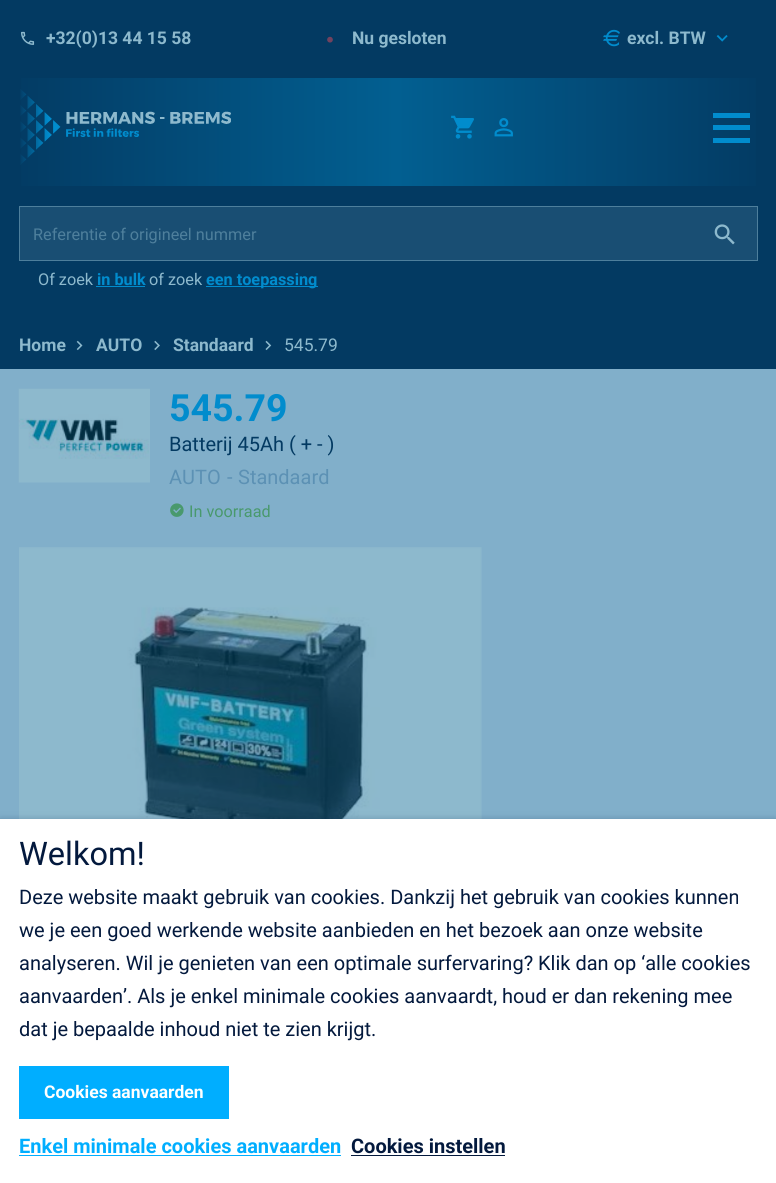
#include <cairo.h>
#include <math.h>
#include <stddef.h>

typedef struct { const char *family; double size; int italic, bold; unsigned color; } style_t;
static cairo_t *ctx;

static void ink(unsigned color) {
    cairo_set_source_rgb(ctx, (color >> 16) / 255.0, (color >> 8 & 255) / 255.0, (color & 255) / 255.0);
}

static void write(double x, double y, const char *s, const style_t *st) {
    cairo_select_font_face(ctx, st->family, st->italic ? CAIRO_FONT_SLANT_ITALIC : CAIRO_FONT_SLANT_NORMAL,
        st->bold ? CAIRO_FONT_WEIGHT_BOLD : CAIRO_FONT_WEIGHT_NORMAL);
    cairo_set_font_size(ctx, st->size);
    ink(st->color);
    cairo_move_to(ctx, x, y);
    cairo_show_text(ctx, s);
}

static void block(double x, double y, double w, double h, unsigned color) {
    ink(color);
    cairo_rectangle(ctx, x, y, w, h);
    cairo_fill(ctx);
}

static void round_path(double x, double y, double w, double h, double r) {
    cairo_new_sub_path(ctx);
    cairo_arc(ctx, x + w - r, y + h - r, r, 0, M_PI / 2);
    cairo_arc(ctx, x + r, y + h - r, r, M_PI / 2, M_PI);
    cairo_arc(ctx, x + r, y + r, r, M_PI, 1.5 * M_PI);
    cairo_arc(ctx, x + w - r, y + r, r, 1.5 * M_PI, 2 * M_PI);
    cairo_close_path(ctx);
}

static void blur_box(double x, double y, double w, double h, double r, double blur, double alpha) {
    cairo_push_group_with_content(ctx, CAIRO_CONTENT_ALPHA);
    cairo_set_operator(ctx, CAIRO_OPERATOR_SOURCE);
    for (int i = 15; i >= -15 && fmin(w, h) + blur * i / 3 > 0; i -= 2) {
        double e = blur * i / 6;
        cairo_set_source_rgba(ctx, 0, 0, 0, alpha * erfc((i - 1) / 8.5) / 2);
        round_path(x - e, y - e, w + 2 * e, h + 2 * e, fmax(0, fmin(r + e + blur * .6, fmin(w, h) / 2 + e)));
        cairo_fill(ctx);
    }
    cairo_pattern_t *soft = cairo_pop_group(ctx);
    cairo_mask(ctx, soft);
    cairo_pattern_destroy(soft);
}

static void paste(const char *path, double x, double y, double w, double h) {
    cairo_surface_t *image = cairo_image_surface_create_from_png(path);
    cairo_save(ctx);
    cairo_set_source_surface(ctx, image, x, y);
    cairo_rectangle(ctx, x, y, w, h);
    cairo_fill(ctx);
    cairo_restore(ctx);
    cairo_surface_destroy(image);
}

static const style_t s1 = {"Roboto", 17.5, 0, 1, 0x8db9cd};
static const style_t s2 = {"Roboto", 16.25, 0, 0, 0x4e7f9c};
static const style_t s3 = {"Roboto", 16.25, 0, 0, 0x8db9cd};
static const style_t s4 = {"Roboto", 16.25, 0, 1, 0x018ccd};
static const style_t s5 = {"Roboto", 17.5, 0, 0, 0x8db9cd};
static const style_t s6 = {"Roboto", 37.5, 0, 1, 0x018ccd};
static const style_t s7 = {"Roboto", 20, 0, 0, 0x033a62};
static const style_t s8 = {"Roboto", 20, 0, 0, 0x5c91b4};
static const style_t s9 = {"Roboto", 16.25, 0, 0, 0x49996d};
static const style_t s10 = {"Roboto", 32.5, 0, 0, 0x03193d};
static const style_t s11 = {"Roboto", 20, 0, 0, 0x03193d};
static const style_t s12 = {"Roboto", 17.5, 0, 1, 0xffffff};
static const style_t s13 = {"Roboto", 20, 0, 1, 0x00aeff};
static const style_t s14 = {"Roboto", 20, 0, 1, 0x03193d};

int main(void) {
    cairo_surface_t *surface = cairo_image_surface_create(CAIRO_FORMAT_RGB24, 776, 1183);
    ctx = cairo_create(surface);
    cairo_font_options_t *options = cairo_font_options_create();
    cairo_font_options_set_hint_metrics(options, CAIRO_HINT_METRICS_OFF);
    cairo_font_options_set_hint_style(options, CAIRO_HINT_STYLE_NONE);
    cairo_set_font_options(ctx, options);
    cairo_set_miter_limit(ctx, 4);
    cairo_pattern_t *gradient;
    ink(0x033a62);
    cairo_paint(ctx);
    paste("pic1.png", 21, 31, 14, 14);
    write(46, 44, "+32(0)13 44 15 58", &s1);
    paste("pic2.png", 327, 36, 6, 7);
    write(352, 44, "Nu gesloten", &s1);
    paste("pic3.png", 603, 29, 17, 18);
    write(627, 44, "excl. BTW", &s1);
    paste("pic4.png", 716, 35, 12, 7);
    gradient = cairo_pattern_create_linear(0, 195, 776, 195);
    cairo_pattern_add_color_stop_rgba(gradient, 0, 0.012, 0.227, 0.384, 1);
    cairo_pattern_add_color_stop_rgba(gradient, 0.51, 0.008, 0.373, 0.569, 1);
    cairo_pattern_add_color_stop_rgba(gradient, 1, 0.012, 0.227, 0.384, 1);
    cairo_set_source(ctx, gradient);
    cairo_pattern_destroy(gradient);
    cairo_rectangle(ctx, 21, 78, 735, 235);
    cairo_fill(ctx);
    paste("pic5.png", 20, 89, 211, 76);
    paste("pic6.png", 451, 115, 23, 24);
    paste("pic7.png", 494, 118, 19, 19);
    block(713, 125, 37, 5, 0x018ccd);
    block(713, 113, 37, 5, 0x018ccd);
    block(713, 138, 37, 5, 0x018ccd);
    block(21, 186, 735, 127, 0x033a62);
    ink(0x194e73);
    cairo_rectangle(ctx, 19.5, 206.5, 738, 54);
    cairo_fill_preserve(ctx);
    ink(0x4e7f9c);
    cairo_set_line_width(ctx, 1);
    cairo_stroke(ctx);
    write(33, 240, "Referentie of origineel nummer", &s2);
    paste("pic8.png", 714, 224, 21, 21);
    write(38, 285, "Of zoek", &s3);
    write(97, 285, "in bulk", &s4);
    block(96, 286, 49, 1, 0x018ccd);
    write(149, 285, "of zoek", &s3);
    block(206, 286, 112, 1, 0x018ccd);
    write(206, 285, "een toepassing", &s4);
    write(19, 351, "Home", &s1);
    paste("pic9.png", 76, 340, 7, 11);
    write(96, 351, "AUTO", &s1);
    paste("pic10.png", 154, 340, 6, 11);
    write(173, 351, "Standaard", &s1);
    paste("pic11.png", 265, 340, 7, 11);
    write(284, 351, "545.79", &s5);
    block(0, 369, 776, 450, 0x81afca);
    paste("pic12.png", 18, 388, 132, 95);
    write(169, 421, "545.79", &s6);
    write(169, 451, "Batterij 45Ah ( + - )", &s7);
    write(169, 484, "AUTO", &s8);
    write(227, 484, "-", &s8);
    write(238, 484, "Standaard", &s8);
    paste("pic13.png", 170, 503, 14, 14);
    write(189, 517, "In voorraad", &s9);
    paste("pic14.png", 19, 547, 463, 272);
    ink(0x03193d);
    blur_box(0, 821, 776, 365, 0, 4, 0.4);
    block(0, 819, 776, 364, 0xffffff);
    write(19, 865, "Welkom!", &s10);
    write(19, 904, "Deze website maakt gebruik van cookies. Dankzij het gebruik van cookies kunnen", &s11);
    write(19, 937, "we je een goed werkende website aanbieden en het bezoek aan onze website", &s11);
    write(19, 970, "analyseren. Wil je genieten van een optimale surfervaring? Klik dan op ‘alle cookies", &s11);
    write(19, 1003, "aanvaarden’. Als je enkel minimale cookies aanvaardt, houd er dan rekening mee", &s11);
    write(19, 1036, "dat je bepaalde inhoud niet te zien krijgt.", &s11);
    block(19, 1066, 210, 53, 0x00aeff);
    write(44, 1098, "Cookies aanvaarden", &s12);
    write(19, 1153, "Enkel minimale cookies aanvaarden", &s13);
    block(19, 1155, 322, 1, 0x00aeff);
    write(351, 1153, "Cookies instellen", &s14);
    block(351, 1155, 154, 1, 0x03193d);
    cairo_surface_write_to_png(surface, "screenshot.png");
    cairo_font_options_destroy(options);
    cairo_destroy(ctx);
    cairo_surface_destroy(surface);
    return 0;
}
